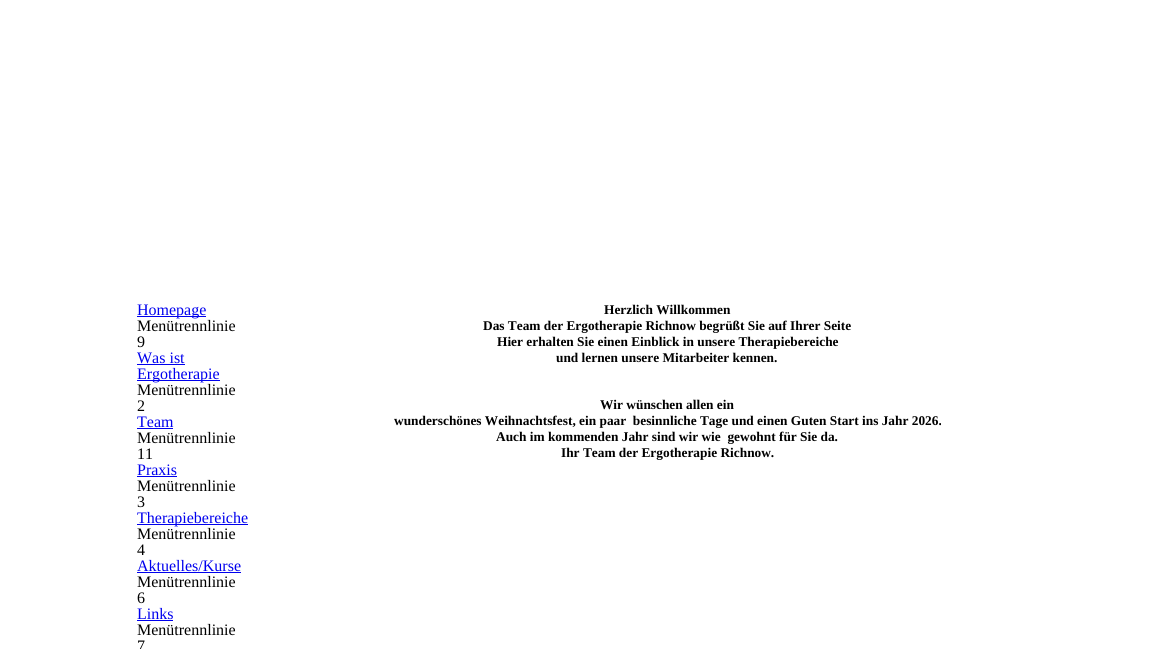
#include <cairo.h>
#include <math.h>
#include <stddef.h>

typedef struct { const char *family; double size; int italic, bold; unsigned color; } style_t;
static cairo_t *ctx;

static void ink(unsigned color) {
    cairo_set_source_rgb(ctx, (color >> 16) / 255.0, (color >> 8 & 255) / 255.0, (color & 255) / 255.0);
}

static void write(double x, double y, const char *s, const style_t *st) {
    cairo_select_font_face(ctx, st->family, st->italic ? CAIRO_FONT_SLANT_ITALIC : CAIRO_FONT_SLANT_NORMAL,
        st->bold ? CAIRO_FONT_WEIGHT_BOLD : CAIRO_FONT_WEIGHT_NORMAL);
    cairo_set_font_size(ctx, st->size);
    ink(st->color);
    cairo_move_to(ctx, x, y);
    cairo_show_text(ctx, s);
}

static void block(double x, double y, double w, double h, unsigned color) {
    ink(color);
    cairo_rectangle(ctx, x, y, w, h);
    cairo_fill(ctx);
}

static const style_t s1 = {"Liberation Serif", 16, 0, 0, 0x0000ee};
static const style_t s2 = {"Liberation Serif", 16, 0, 0, 0x000000};
static const style_t s3 = {"Liberation Serif", 13.35, 0, 1, 0x000000};

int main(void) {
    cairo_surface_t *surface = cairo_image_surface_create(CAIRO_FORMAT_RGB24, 1162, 649);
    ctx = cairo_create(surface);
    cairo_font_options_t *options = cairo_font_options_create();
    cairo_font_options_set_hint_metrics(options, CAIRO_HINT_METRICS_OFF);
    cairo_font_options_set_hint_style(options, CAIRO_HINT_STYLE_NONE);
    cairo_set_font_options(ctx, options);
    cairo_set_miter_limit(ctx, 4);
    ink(0xffffff);
    cairo_paint(ctx);
    block(137, 316, 69, 1, 0x0000ee);
    write(137, 315, "Homepage", &s1);
    write(137, 331, "Menütrennlinie", &s2);
    write(137, 347, "9", &s2);
    write(137, 363, "Was ist", &s1);
    block(137, 364, 48, 1, 0x0000ee);
    block(137, 380, 83, 1, 0x0000ee);
    write(137, 379, "Ergotherapie", &s1);
    write(137, 395, "Menütrennlinie", &s2);
    write(137, 411, "2", &s2);
    write(137, 427, "Team", &s1);
    block(137, 428, 36, 1, 0x0000ee);
    write(137, 443, "Menütrennlinie", &s2);
    write(137, 459, "11", &s2);
    write(137, 475, "Praxis", &s1);
    block(137, 476, 40, 1, 0x0000ee);
    write(137, 491, "Menütrennlinie", &s2);
    write(137, 507, "3", &s2);
    block(137, 524, 111, 1, 0x0000ee);
    write(137, 523, "Therapiebereiche", &s1);
    write(137, 539, "Menütrennlinie", &s2);
    write(137, 555, "4", &s2);
    write(137, 571, "Aktuelles/Kurse", &s1);
    block(137, 572, 104, 1, 0x0000ee);
    write(137, 587, "Menütrennlinie", &s2);
    write(137, 603, "6", &s2);
    write(137, 619, "Links", &s1);
    block(137, 620, 36, 1, 0x0000ee);
    write(137, 635, "Menütrennlinie", &s2);
    write(137, 651, "7", &s2);
    write(604, 314, "Herzlich Willkommen", &s3);
    write(483, 330, "Das Team der Ergotherapie Richnow begrüßt Sie auf Ihrer Seite", &s3);
    write(497, 346, "Hier erhalten Sie einen Einblick in unsere Therapiebereiche", &s3);
    write(556, 362, "und lernen unsere Mitarbeiter kennen.", &s3);
    write(600, 409, "Wir wünschen allen ein", &s3);
    write(394, 425, "wunderschönes Weihnachtsfest, ein paar  besinnliche Tage und einen Guten Start ins Jahr 2026.", &s3);
    write(496, 441, "Auch im kommenden Jahr sind wir wie  gewohnt für Sie da.", &s3);
    write(561, 457, "Ihr Team der Ergotherapie Richnow.", &s3);
    cairo_surface_write_to_png(surface, "screenshot.png");
    cairo_font_options_destroy(options);
    cairo_destroy(ctx);
    cairo_surface_destroy(surface);
    return 0;
}
